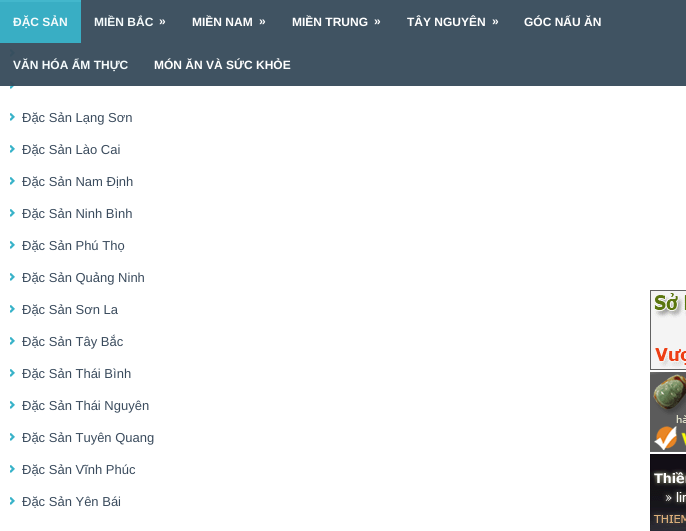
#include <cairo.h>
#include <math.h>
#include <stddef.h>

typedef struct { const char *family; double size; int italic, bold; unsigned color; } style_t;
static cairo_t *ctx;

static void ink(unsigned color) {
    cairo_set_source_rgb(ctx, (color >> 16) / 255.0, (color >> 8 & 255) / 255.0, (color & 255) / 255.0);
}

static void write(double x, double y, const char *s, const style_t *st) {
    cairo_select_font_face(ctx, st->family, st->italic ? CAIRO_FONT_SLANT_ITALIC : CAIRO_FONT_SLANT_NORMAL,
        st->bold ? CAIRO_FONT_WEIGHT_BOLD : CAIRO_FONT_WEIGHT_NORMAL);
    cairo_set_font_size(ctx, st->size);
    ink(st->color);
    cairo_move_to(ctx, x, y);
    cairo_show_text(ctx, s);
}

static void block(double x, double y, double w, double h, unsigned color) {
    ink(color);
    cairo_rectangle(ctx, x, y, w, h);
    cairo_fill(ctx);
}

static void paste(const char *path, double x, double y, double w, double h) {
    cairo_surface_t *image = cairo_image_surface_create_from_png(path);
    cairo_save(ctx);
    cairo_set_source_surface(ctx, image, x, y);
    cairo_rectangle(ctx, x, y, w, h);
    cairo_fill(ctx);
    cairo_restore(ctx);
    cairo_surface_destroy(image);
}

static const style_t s1 = {"Liberation Sans", 12, 0, 1, 0xf5fbfc};
static const style_t s2 = {"Liberation Sans", 12, 0, 1, 0xffffff};
static const style_t s3 = {"Liberation Sans", 13, 0, 0, 0x3a4b5d};

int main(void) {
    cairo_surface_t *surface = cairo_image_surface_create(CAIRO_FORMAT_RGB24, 686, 531);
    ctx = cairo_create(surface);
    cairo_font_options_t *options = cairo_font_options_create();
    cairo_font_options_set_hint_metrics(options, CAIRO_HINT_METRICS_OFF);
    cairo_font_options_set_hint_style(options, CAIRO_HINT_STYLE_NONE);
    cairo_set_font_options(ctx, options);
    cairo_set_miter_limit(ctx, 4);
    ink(0xffffff);
    cairo_paint(ctx);
    paste("pic1.png", 10, 17, 5, 8);
    paste("pic1.png", 10, 49, 5, 8);
    paste("pic1.png", 10, 81, 5, 8);
    cairo_set_source_rgba(ctx, 0.216, 0.294, 0.357, 0.95);
    cairo_rectangle(ctx, 0, 0, 686, 86);
    cairo_fill(ctx);
    cairo_set_source_rgba(ctx, 0.224, 0.702, 0.788, 0.95);
    cairo_rectangle(ctx, 0, 2, 81, 41);
    cairo_fill(ctx);
    block(0, 0, 81, 2, 0x43b7cc);
    write(13, 26, "ĐẶC SẢN", &s1);
    write(94, 26, "MIỀN BẮC", &s1);
    write(159, 25, "»", &s2);
    write(192, 26, "MIỀN NAM", &s2);
    write(259, 25, "»", &s2);
    write(292, 26, "MIỀN TRUNG", &s2);
    write(374, 25, "»", &s2);
    write(407, 26, "TÂY NGUYÊN", &s2);
    write(492, 25, "»", &s2);
    write(524, 26, "GÓC NẤU ĂN", &s2);
    write(13, 69, "VĂN HÓA ẨM THỰC", &s1);
    write(154, 69, "MÓN ĂN VÀ SỨC KHỎE", &s2);
    paste("pic1.png", 10, 113, 5, 8);
    write(22, 122, "Đặc Sản Lạng Sơn", &s3);
    paste("pic1.png", 10, 145, 5, 8);
    write(22, 154, "Đặc Sản Lào Cai", &s3);
    paste("pic1.png", 10, 177, 5, 8);
    write(22, 186, "Đặc Sản Nam Định", &s3);
    paste("pic1.png", 10, 209, 5, 8);
    write(22, 218, "Đặc Sản Ninh Bình", &s3);
    paste("pic1.png", 10, 241, 5, 8);
    write(22, 250, "Đặc Sản Phú Thọ", &s3);
    paste("pic1.png", 10, 273, 5, 8);
    write(22, 282, "Đặc Sản Quảng Ninh", &s3);
    paste("pic1.png", 10, 305, 5, 8);
    write(22, 314, "Đặc Sản Sơn La", &s3);
    paste("pic1.png", 10, 337, 5, 8);
    write(22, 346, "Đặc Sản Tây Bắc", &s3);
    paste("pic1.png", 10, 369, 5, 8);
    write(22, 378, "Đặc Sản Thái Bình", &s3);
    paste("pic1.png", 10, 401, 5, 8);
    write(22, 410, "Đặc Sản Thái Nguyên", &s3);
    paste("pic1.png", 10, 433, 5, 8);
    write(22, 442, "Đặc Sản Tuyên Quang", &s3);
    paste("pic1.png", 10, 465, 5, 8);
    write(22, 474, "Đặc Sản Vĩnh Phúc", &s3);
    paste("pic1.png", 10, 497, 5, 8);
    write(22, 506, "Đặc Sản Yên Bái", &s3);
    paste("pic2.png", 650, 290, 36, 80);
    paste("pic3.png", 650, 372, 36, 80);
    paste("pic4.png", 650, 454, 36, 77);
    cairo_surface_write_to_png(surface, "screenshot.png");
    cairo_font_options_destroy(options);
    cairo_destroy(ctx);
    cairo_surface_destroy(surface);
    return 0;
}
